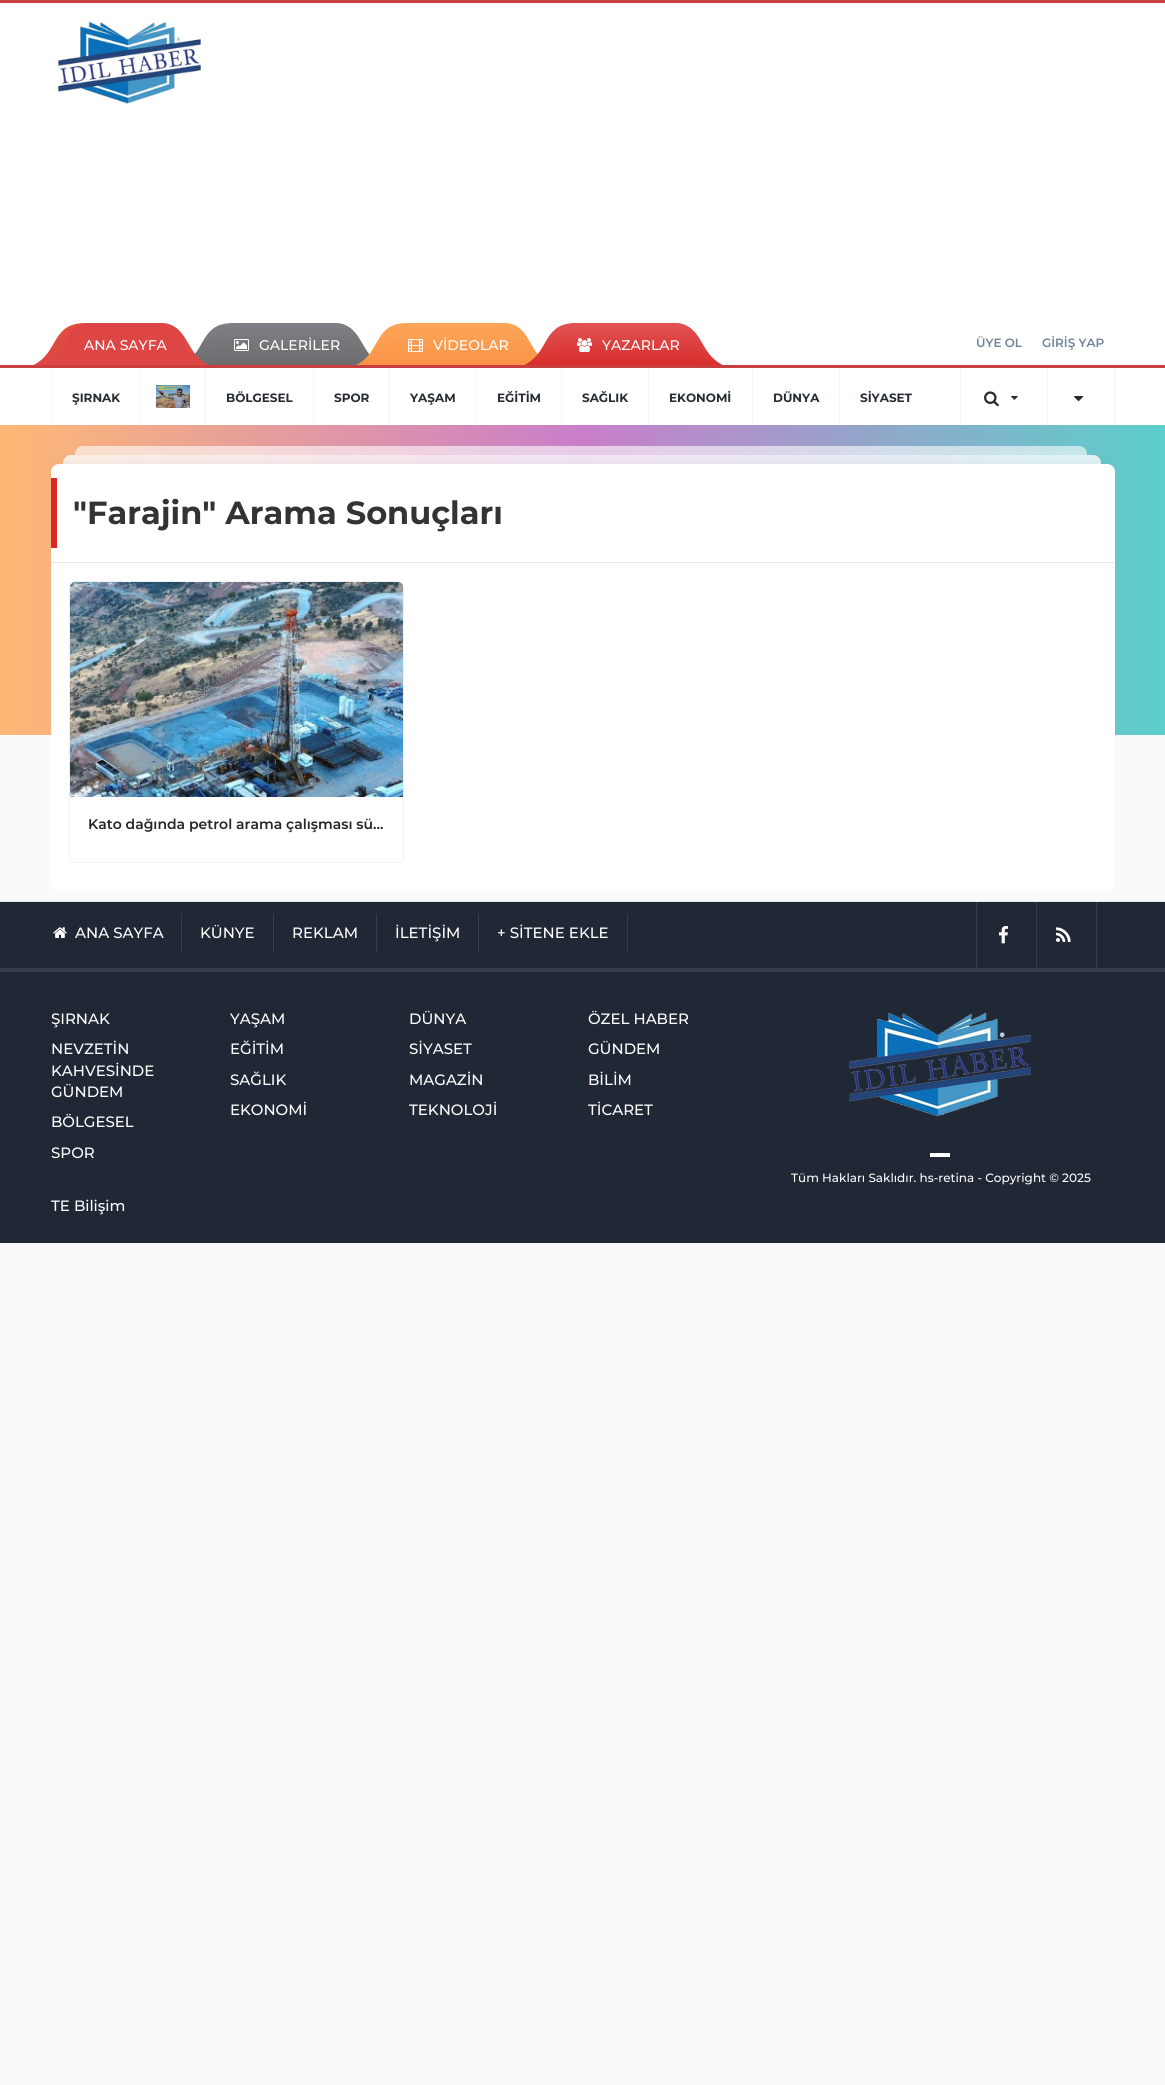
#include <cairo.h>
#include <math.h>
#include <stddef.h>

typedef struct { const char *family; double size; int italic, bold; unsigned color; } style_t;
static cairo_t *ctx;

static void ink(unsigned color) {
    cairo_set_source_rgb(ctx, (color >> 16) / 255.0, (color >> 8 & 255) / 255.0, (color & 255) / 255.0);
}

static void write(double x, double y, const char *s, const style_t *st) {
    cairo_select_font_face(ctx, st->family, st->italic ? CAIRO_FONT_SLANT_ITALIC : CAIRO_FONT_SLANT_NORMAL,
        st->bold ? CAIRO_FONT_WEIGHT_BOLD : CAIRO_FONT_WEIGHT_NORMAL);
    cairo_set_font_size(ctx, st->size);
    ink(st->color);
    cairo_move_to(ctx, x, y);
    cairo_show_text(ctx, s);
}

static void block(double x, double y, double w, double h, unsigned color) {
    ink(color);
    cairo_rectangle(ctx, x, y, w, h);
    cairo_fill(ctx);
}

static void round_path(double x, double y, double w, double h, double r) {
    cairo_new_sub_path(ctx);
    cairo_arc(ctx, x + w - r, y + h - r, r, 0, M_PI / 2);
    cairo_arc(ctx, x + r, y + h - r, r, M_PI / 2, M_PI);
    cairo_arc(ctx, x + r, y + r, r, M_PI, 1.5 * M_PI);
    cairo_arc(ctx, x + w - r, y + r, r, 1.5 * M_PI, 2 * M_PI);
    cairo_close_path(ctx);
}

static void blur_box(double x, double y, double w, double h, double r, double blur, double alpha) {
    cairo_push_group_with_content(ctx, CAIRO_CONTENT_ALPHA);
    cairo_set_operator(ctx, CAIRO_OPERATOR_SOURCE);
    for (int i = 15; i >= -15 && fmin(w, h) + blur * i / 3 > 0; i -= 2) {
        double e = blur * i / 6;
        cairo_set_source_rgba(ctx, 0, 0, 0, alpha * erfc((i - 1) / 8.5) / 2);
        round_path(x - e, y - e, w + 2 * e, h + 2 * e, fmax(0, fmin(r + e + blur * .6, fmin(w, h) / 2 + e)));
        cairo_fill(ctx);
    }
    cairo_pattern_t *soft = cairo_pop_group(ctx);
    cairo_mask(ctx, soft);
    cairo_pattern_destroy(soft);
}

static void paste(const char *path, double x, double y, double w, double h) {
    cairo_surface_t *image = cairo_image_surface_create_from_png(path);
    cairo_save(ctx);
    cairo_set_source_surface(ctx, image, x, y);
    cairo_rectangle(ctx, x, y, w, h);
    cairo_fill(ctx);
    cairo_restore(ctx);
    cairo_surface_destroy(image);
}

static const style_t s1 = {"Montserrat Medium", 14, 0, 0, 0xffffff};
static const style_t s2 = {"Montserrat SemiBold", 12, 0, 0, 0x6e8398};
static const style_t s3 = {"Montserrat", 12, 0, 1, 0x252d31};
static const style_t s4 = {"Montserrat", 32, 0, 1, 0x333333};
static const style_t s5 = {"Montserrat SemiBold", 14, 0, 0, 0x252525};
static const style_t s6 = {"Montserrat Medium", 15, 0, 0, 0xffffff};
static const style_t s7 = {"Montserrat Medium", 12, 0, 0, 0xffffff};

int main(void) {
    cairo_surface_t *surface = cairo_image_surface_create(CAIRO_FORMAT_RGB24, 1165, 2085);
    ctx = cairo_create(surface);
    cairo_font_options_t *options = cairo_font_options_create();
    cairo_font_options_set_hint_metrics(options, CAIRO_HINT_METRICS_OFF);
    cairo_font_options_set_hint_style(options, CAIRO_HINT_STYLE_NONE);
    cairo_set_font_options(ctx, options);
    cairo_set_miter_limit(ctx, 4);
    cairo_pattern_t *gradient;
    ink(0xf8fafc);
    cairo_paint(ctx);
    block(0, 3, 1165, 362, 0xffffff);
    block(0, 0, 1165, 3, 0xc83f3e);
    paste("pic1.png", 58, 21, 143, 83);
    paste("pic2.png", 33, 323, 54, 42);
    paste("pic4.png", 194, 323, 41, 42);
    paste("pic3.png", 163, 323, 46, 42);
    ink(0xde4645);
    cairo_new_path(ctx);
    cairo_move_to(ctx, 88, 323);
    cairo_line_to(ctx, 162, 323);
    cairo_curve_to(ctx, 174.5, 323, 185, 333.5, 185, 346);
    cairo_line_to(ctx, 185, 365);
    cairo_line_to(ctx, 65, 365);
    cairo_line_to(ctx, 65, 346);
    cairo_curve_to(ctx, 65, 333.5, 75.5, 323, 88, 323);
    cairo_close_path(ctx);
    cairo_fill(ctx);
    write(84, 350, "ANA SAYFA", &s1);
    paste("pic6.png", 337, 323, 33, 41);
    gradient = cairo_pattern_create_linear(286, 323, 286, 365);
    cairo_pattern_add_color_stop_rgba(gradient, 0, 0.498, 0.502, 0.514, 1);
    cairo_pattern_add_color_stop_rgba(gradient, 1, 0.424, 0.424, 0.435, 1);
    cairo_set_source(ctx, gradient);
    cairo_pattern_destroy(gradient);
    cairo_new_path(ctx);
    cairo_move_to(ctx, 236, 323);
    cairo_line_to(ctx, 336, 323);
    cairo_curve_to(ctx, 348.5, 323, 359, 333.5, 359, 346);
    cairo_line_to(ctx, 359, 365);
    cairo_line_to(ctx, 213, 365);
    cairo_line_to(ctx, 213, 346);
    cairo_curve_to(ctx, 213, 333.5, 223.5, 323, 236, 323);
    cairo_close_path(ctx);
    cairo_fill(ctx);
    paste("pic5.png", 234, 339, 15, 12);
    write(259, 350, "GALERİLER", &s1);
    paste("pic7.png", 356, 323, 53, 42);
    paste("pic9.png", 506, 323, 32, 40);
    gradient = cairo_pattern_create_linear(458, 323, 458, 365);
    cairo_pattern_add_color_stop_rgba(gradient, 0, 0.988, 0.651, 0.345, 1);
    cairo_pattern_add_color_stop_rgba(gradient, 1, 0.984, 0.573, 0.275, 1);
    cairo_set_source(ctx, gradient);
    cairo_pattern_destroy(gradient);
    cairo_new_path(ctx);
    cairo_move_to(ctx, 410, 323);
    cairo_line_to(ctx, 505, 323);
    cairo_curve_to(ctx, 517.5, 323, 528, 333.5, 528, 346);
    cairo_line_to(ctx, 528, 365);
    cairo_line_to(ctx, 387, 365);
    cairo_line_to(ctx, 387, 346);
    cairo_curve_to(ctx, 387, 333.5, 397.5, 323, 410, 323);
    cairo_close_path(ctx);
    cairo_fill(ctx);
    paste("pic8.png", 408, 339, 15, 13);
    write(433, 350, "VİDEOLAR", &s1);
    paste("pic10.png", 524, 323, 54, 42);
    paste("pic12.png", 677, 323, 46, 42);
    gradient = cairo_pattern_create_linear(628, 323, 628, 365);
    cairo_pattern_add_color_stop_rgba(gradient, 0, 0.878, 0.329, 0.329, 1);
    cairo_pattern_add_color_stop_rgba(gradient, 1, 0.851, 0.173, 0.169, 1);
    cairo_set_source(ctx, gradient);
    cairo_pattern_destroy(gradient);
    cairo_new_path(ctx);
    cairo_move_to(ctx, 579, 323);
    cairo_line_to(ctx, 676, 323);
    cairo_curve_to(ctx, 688.5, 323, 699, 333.5, 699, 346);
    cairo_line_to(ctx, 699, 365);
    cairo_line_to(ctx, 556, 365);
    cairo_line_to(ctx, 556, 346);
    cairo_curve_to(ctx, 556, 333.5, 566.5, 323, 579, 323);
    cairo_close_path(ctx);
    cairo_fill(ctx);
    paste("pic11.png", 577, 338, 15, 14);
    write(602, 350, "YAZARLAR", &s1);
    write(976, 347, "ÜYE OL", &s2);
    write(1042, 347, "GİRİŞ YAP", &s2);
    block(0, 368, 1165, 57, 0xffffff);
    block(0, 365, 1165, 3, 0xc83f3e);
    block(1114, 368, 1, 57, 0xf5f5f5);
    block(51, 368, 1, 57, 0xf5f5f5);
    write(72, 402, "ŞIRNAK", &s3);
    block(140, 368, 1, 57, 0xf5f5f5);
    paste("pic13.png", 156, 385, 34, 23);
    block(205, 368, 1, 57, 0xf5f5f5);
    write(226, 402, "BÖLGESEL", &s3);
    block(313, 368, 1, 57, 0xf5f5f5);
    write(334, 402, "SPOR", &s3);
    block(389, 368, 1, 57, 0xf5f5f5);
    write(410, 402, "YAŞAM", &s3);
    block(476, 368, 1, 57, 0xf5f5f5);
    write(497, 402, "EĞİTİM", &s3);
    block(561, 368, 1, 57, 0xf5f5f5);
    write(582, 402, "SAĞLIK", &s3);
    block(648, 368, 1, 57, 0xf5f5f5);
    write(669, 402, "EKONOMİ", &s3);
    block(752, 368, 1, 57, 0xf5f5f5);
    write(773, 402, "DÜNYA", &s3);
    block(839, 368, 1, 57, 0xf5f5f5);
    write(860, 402, "SİYASET", &s3);
    block(960, 368, 1, 57, 0xf5f5f5);
    paste("pic14.png", 984, 391, 15, 16);
    paste("pic15.png", 1011, 396, 7, 4);
    block(1047, 368, 1, 57, 0xf5f5f5);
    paste("pic16.png", 1074, 396, 10, 6);
    gradient = cairo_pattern_create_linear(0, 435, 1165, 435);
    cairo_pattern_add_color_stop_rgba(gradient, 0, 0.996, 0.722, 0.459, 1);
    cairo_pattern_add_color_stop_rgba(gradient, 0.5, 0.788, 0.494, 0.792, 1);
    cairo_pattern_add_color_stop_rgba(gradient, 1, 0.357, 0.812, 0.796, 1);
    cairo_set_source(ctx, gradient);
    cairo_pattern_destroy(gradient);
    cairo_rectangle(ctx, 0, 425, 1165, 10);
    cairo_fill(ctx);
    gradient = cairo_pattern_create_linear(0, 585, 1165, 585);
    cairo_pattern_add_color_stop_rgba(gradient, 0, 0.996, 0.722, 0.459, 1);
    cairo_pattern_add_color_stop_rgba(gradient, 0.5, 0.788, 0.494, 0.792, 1);
    cairo_pattern_add_color_stop_rgba(gradient, 1, 0.357, 0.812, 0.796, 1);
    cairo_set_source(ctx, gradient);
    cairo_pattern_destroy(gradient);
    cairo_rectangle(ctx, 0, 435, 1165, 300);
    cairo_fill(ctx);
    cairo_set_source_rgba(ctx, 1, 1, 1, 0.6);
    cairo_new_path(ctx);
    cairo_move_to(ctx, 83, 446);
    cairo_line_to(ctx, 1079, 446);
    cairo_curve_to(ctx, 1083.5, 446, 1087, 449.5, 1087, 454);
    cairo_line_to(ctx, 1087, 455);
    cairo_line_to(ctx, 75, 455);
    cairo_line_to(ctx, 75, 454);
    cairo_curve_to(ctx, 75, 449.5, 78.5, 446, 83, 446);
    cairo_close_path(ctx);
    cairo_fill(ctx);
    cairo_set_source_rgba(ctx, 1, 1, 1, 0.8);
    cairo_new_path(ctx);
    cairo_move_to(ctx, 71, 455);
    cairo_line_to(ctx, 1093, 455);
    cairo_curve_to(ctx, 1097.5, 455, 1101, 458.5, 1101, 463);
    cairo_line_to(ctx, 1101, 464);
    cairo_line_to(ctx, 63, 464);
    cairo_line_to(ctx, 63, 463);
    cairo_curve_to(ctx, 63, 458.5, 66.5, 455, 71, 455);
    cairo_close_path(ctx);
    cairo_fill(ctx);
    ink(0xffffff);
    cairo_new_path(ctx);
    cairo_move_to(ctx, 51, 563);
    cairo_line_to(ctx, 1115, 563);
    cairo_line_to(ctx, 1115, 883);
    cairo_curve_to(ctx, 1115, 887.5, 1111.5, 891, 1107, 891);
    cairo_line_to(ctx, 59, 891);
    cairo_curve_to(ctx, 54.5, 891, 51, 887.5, 51, 883);
    cairo_close_path(ctx);
    cairo_fill(ctx);
    ink(0x6e8398);
    blur_box(51, 460, 1064, 99, 8, 4, 0.08);
    ink(0xffffff);
    cairo_new_path(ctx);
    cairo_move_to(ctx, 59, 464);
    cairo_line_to(ctx, 1107, 464);
    cairo_curve_to(ctx, 1111.5, 464, 1115, 467.5, 1115, 472);
    cairo_line_to(ctx, 1115, 563);
    cairo_line_to(ctx, 51, 563);
    cairo_line_to(ctx, 51, 472);
    cairo_curve_to(ctx, 51, 467.5, 54.5, 464, 59, 464);
    cairo_close_path(ctx);
    cairo_fill(ctx);
    block(51, 562, 1064, 1, 0xe6e6e6);
    block(51, 478, 6, 70, 0xd82726);
    write(73, 524, "\"Farajin\" Arama Sonuçları", &s4);
    round_path(69.5, 581.5, 334, 281, 4.5);
    ink(0xeef3f7);
    cairo_set_line_width(ctx, 1);
    cairo_stroke(ctx);
    paste("pic17.png", 70, 582, 333, 215);
    write(88, 829, "Kato dağında petrol arama çalışması sü…", &s5);
    block(0, 902, 1165, 66, 0x202735);
    block(0, 901, 1165, 1, 0xdfe9ee);
    block(0, 968, 1165, 4, 0x373d4a);
    block(181, 914, 1, 38, 0x373d4a);
    paste("pic18.png", 53, 927, 14, 11);
    write(75, 938, "ANA SAYFA", &s6);
    block(273, 914, 1, 38, 0x373d4a);
    write(200, 938, "KÜNYE", &s6);
    block(376, 914, 1, 38, 0x373d4a);
    write(292, 938, "REKLAM", &s6);
    block(478, 914, 1, 38, 0x373d4a);
    write(395, 938, "İLETİŞİM", &s6);
    block(627, 914, 1, 38, 0x373d4a);
    write(497, 938, "+ SİTENE EKLE", &s6);
    block(976, 902, 1, 66, 0x373d4a);
    block(1036, 902, 1, 66, 0x373d4a);
    paste("pic19.png", 999, 926, 9, 18);
    block(1096, 902, 1, 66, 0x373d4a);
    paste("pic20.png", 1056, 927, 15, 15);
    block(0, 972, 1165, 271, 0x202735);
    write(51, 1024, "ŞIRNAK", &s6);
    write(51, 1054, "NEVZETİN", &s6);
    write(51, 1076, "KAHVESİNDE", &s6);
    write(51, 1097, "GÜNDEM", &s6);
    write(51, 1127, "BÖLGESEL", &s6);
    write(51, 1158, "SPOR", &s6);
    write(230, 1024, "YAŞAM", &s6);
    write(230, 1054, "EĞİTİM", &s6);
    write(230, 1085, "SAĞLIK", &s6);
    write(230, 1115, "EKONOMİ", &s6);
    write(409, 1024, "DÜNYA", &s6);
    write(409, 1054, "SİYASET", &s6);
    write(409, 1085, "MAGAZİN", &s6);
    write(409, 1115, "TEKNOLOJİ", &s6);
    write(588, 1024, "ÖZEL HABER", &s6);
    write(588, 1054, "GÜNDEM", &s6);
    write(588, 1085, "BİLİM", &s6);
    write(588, 1115, "TİCARET", &s6);
    paste("pic21.png", 849, 1012, 182, 105);
    block(930, 1153, 20, 4, 0xffffff);
    write(791, 1182, "Tüm Hakları Saklıdır. hs-retina - Copyright © 2025", &s7);
    write(51, 1211, "TE Bilişim", &s6);
    cairo_surface_write_to_png(surface, "screenshot.png");
    cairo_font_options_destroy(options);
    cairo_destroy(ctx);
    cairo_surface_destroy(surface);
    return 0;
}
